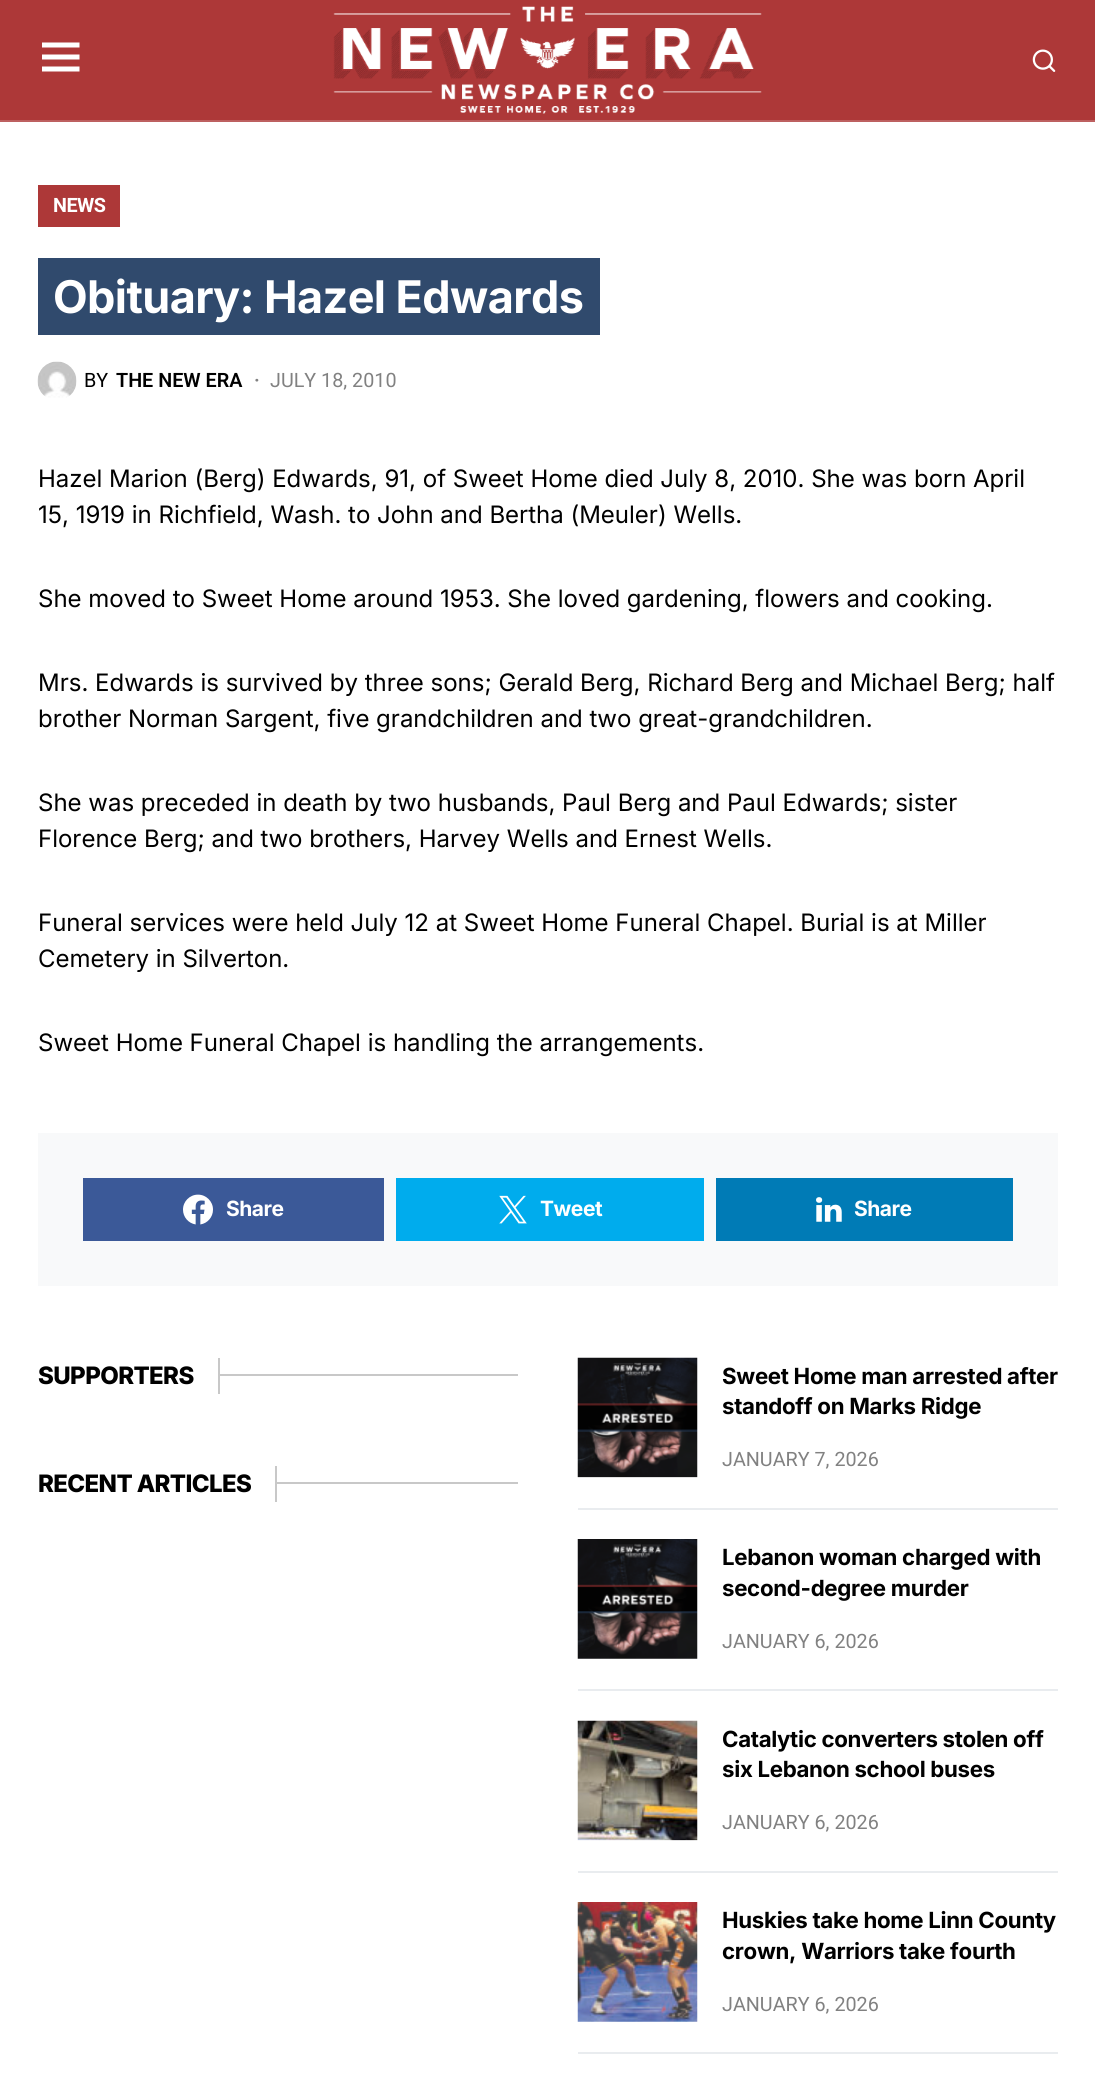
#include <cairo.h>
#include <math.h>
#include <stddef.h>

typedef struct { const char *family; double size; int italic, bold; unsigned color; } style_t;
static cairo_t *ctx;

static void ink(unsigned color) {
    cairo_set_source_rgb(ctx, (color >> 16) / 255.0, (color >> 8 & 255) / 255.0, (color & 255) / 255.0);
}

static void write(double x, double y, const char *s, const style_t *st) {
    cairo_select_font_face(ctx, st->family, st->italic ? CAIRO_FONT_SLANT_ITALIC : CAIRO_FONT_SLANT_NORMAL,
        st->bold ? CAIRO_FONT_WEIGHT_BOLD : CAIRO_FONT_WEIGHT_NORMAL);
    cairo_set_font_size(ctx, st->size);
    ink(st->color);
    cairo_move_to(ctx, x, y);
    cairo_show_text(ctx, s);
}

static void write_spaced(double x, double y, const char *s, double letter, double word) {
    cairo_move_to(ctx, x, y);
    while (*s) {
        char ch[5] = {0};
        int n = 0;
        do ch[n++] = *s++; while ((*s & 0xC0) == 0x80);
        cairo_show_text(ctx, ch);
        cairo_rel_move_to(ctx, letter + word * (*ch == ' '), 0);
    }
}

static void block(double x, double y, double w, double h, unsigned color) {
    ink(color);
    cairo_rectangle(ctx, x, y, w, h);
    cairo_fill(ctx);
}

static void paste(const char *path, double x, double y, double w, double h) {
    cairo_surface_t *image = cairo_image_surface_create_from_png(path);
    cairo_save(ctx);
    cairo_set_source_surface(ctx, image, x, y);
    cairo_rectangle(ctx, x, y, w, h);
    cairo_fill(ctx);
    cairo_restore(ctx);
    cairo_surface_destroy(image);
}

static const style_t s1 = {"Roboto", 19.75, 0, 0, 0x000000};
static const style_t s2 = {"Roboto SemiBold", 19.75, 0, 0, 0x000000};
static const style_t s3 = {"Roboto SemiBold", 19.75, 0, 0, 0x818181};
static const style_t s4 = {"Roboto", 19.75, 0, 0, 0x818181};
static const style_t s5 = {"Inter", 24, 0, 0, 0x000000};

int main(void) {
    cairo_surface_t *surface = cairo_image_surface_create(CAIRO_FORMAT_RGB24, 1095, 2078);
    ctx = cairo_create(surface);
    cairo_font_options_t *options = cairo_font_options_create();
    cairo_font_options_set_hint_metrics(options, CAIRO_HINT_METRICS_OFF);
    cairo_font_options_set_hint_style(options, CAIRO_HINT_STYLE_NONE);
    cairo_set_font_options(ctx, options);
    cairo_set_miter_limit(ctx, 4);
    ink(0xffffff);
    cairo_paint(ctx);
    block(0, 0, 1095, 120, 0xad3838);
    block(0, 120, 1095, 2, 0xbd6060);
    ink(0xffffff);
    cairo_new_path(ctx);
    cairo_move_to(ctx, 42, 42.5);
    cairo_line_to(ctx, 79.5, 42.5);
    cairo_line_to(ctx, 79.5, 47.5);
    cairo_line_to(ctx, 42, 47.5);
    cairo_close_path(ctx);
    cairo_move_to(ctx, 42, 54.5);
    cairo_line_to(ctx, 79.5, 54.5);
    cairo_line_to(ctx, 79.5, 59.5);
    cairo_line_to(ctx, 42, 59.5);
    cairo_close_path(ctx);
    cairo_move_to(ctx, 42, 66.5);
    cairo_line_to(ctx, 79.5, 66.5);
    cairo_line_to(ctx, 79.5, 71.5);
    cairo_line_to(ctx, 42, 71.5);
    cairo_close_path(ctx);
    cairo_fill(ctx);
    paste("pic1.png", 333, 6, 429, 108);
    paste("pic2.png", 1032, 49, 24, 23);
    block(38, 185, 82, 42, 0xad3838);
    cairo_select_font_face(ctx, "Roboto", CAIRO_FONT_SLANT_NORMAL, CAIRO_FONT_WEIGHT_BOLD);
    cairo_set_font_size(ctx, 19.75);
    ink(0xffffff);
    write_spaced(53, 212, "NEWS", -0.5, 0);
    block(38, 258, 562, 77, 0x304a6d);
    cairo_select_font_face(ctx, "Inter", CAIRO_FONT_SLANT_NORMAL, CAIRO_FONT_WEIGHT_BOLD);
    cairo_set_font_size(ctx, 45);
    ink(0xffffff);
    write_spaced(53, 313, "Obituary: Hazel Edwards", -0.6, 0);
    paste("pic3.png", 37, 361, 40, 37);
    write(84, 387, "BY", &s1);
    write(116, 387, "THE NEW ERA", &s2);
    write(254, 387, "·", &s3);
    write(270, 387, "JULY 18, 2010", &s4);
    write(38, 487, "Hazel Marion (Berg) Edwards, 91, of Sweet Home died July 8, 2010. She was born April", &s5);
    write(38, 523, "15, 1919 in Richfield, Wash. to John and Bertha (Meuler) Wells.", &s5);
    write(38, 607, "She moved to Sweet Home around 1953. She loved gardening, flowers and cooking.", &s5);
    write(38, 691, "Mrs. Edwards is survived by three sons; Gerald Berg, Richard Berg and Michael Berg; half", &s5);
    write(38, 727, "brother Norman Sargent, five grandchildren and two great-grandchildren.", &s5);
    write(38, 811, "She was preceded in death by two husbands, Paul Berg and Paul Edwards; sister", &s5);
    write(38, 847, "Florence Berg; and two brothers, Harvey Wells and Ernest Wells.", &s5);
    write(38, 931, "Funeral services were held July 12 at Sweet Home Funeral Chapel. Burial is at Miller", &s5);
    write(38, 967, "Cemetery in Silverton.", &s5);
    write(38, 1051, "Sweet Home Funeral Chapel is handling the arrangements.", &s5);
    block(38, 1133, 1020, 153, 0xf8f9fa);
    block(83, 1178, 301, 63, 0x3b5998);
    paste("pic4.png", 183, 1194, 30, 31);
    cairo_select_font_face(ctx, "Inter", CAIRO_FONT_SLANT_NORMAL, CAIRO_FONT_WEIGHT_BOLD);
    cairo_set_font_size(ctx, 21);
    ink(0xffffff);
    write_spaced(226, 1216, "Share", -0.5, 0);
    block(396, 1178, 308, 63, 0x00aced);
    paste("pic5.png", 499, 1195, 28, 29);
    ink(0xffffff);
    write_spaced(540, 1216, "Tweet", -0.5, 0);
    block(716, 1178, 297, 63, 0x007bb6);
    paste("pic6.png", 816, 1197, 26, 25);
    ink(0xffffff);
    write_spaced(854, 1216, "Share", -0.5, 0);
    block(218, 1358, 2, 36, 0xc8c8c8);
    cairo_select_font_face(ctx, "Inter ExtraBold", CAIRO_FONT_SLANT_NORMAL, CAIRO_FONT_WEIGHT_NORMAL);
    cairo_set_font_size(ctx, 24);
    ink(0x000000);
    write_spaced(38, 1384, "SUPPORTERS", -0.6, 0);
    block(219, 1374, 299, 2, 0xc8c8c8);
    paste("pic7.png", 577, 1357, 121, 121);
    cairo_select_font_face(ctx, "Inter", CAIRO_FONT_SLANT_NORMAL, CAIRO_FONT_WEIGHT_BOLD);
    cairo_set_font_size(ctx, 22.25);
    ink(0x000000);
    write_spaced(722, 1384, "Sweet Home man arrested after", -0.3, 0);
    write_spaced(722, 1414, "standoff on Marks Ridge", -0.3, 0);
    write(722, 1466, "JANUARY 7, 2026", &s4);
    block(578, 1508, 480, 2, 0xe9ecef);
    paste("pic8.png", 577, 1539, 121, 120);
    cairo_select_font_face(ctx, "Inter", CAIRO_FONT_SLANT_NORMAL, CAIRO_FONT_WEIGHT_BOLD);
    cairo_set_font_size(ctx, 22.25);
    ink(0x000000);
    write_spaced(722, 1565, "Lebanon woman charged with", -0.3, 0);
    write_spaced(722, 1596, "second-degree murder", -0.3, 0);
    write(722, 1648, "JANUARY 6, 2026", &s4);
    block(578, 1689, 480, 2, 0xe9ecef);
    paste("pic9.png", 577, 1720, 121, 121);
    cairo_select_font_face(ctx, "Inter", CAIRO_FONT_SLANT_NORMAL, CAIRO_FONT_WEIGHT_BOLD);
    cairo_set_font_size(ctx, 22.25);
    ink(0x000000);
    write_spaced(722, 1747, "Catalytic converters stolen off", -0.3, 0);
    write_spaced(722, 1777, "six Lebanon school buses", -0.3, 0);
    write(722, 1829, "JANUARY 6, 2026", &s4);
    block(578, 1871, 480, 2, 0xe9ecef);
    paste("pic10.png", 577, 1902, 121, 120);
    cairo_select_font_face(ctx, "Inter", CAIRO_FONT_SLANT_NORMAL, CAIRO_FONT_WEIGHT_BOLD);
    cairo_set_font_size(ctx, 22.25);
    ink(0x000000);
    write_spaced(722, 1928, "Huskies take home Linn County", -0.3, 0);
    write_spaced(722, 1959, "crown, Warriors take fourth", -0.3, 0);
    write(722, 2011, "JANUARY 6, 2026", &s4);
    block(578, 2052, 480, 2, 0xe9ecef);
    block(275, 1466, 2, 36, 0xc8c8c8);
    cairo_select_font_face(ctx, "Inter ExtraBold", CAIRO_FONT_SLANT_NORMAL, CAIRO_FONT_WEIGHT_NORMAL);
    cairo_set_font_size(ctx, 24);
    ink(0x000000);
    write_spaced(38, 1492, "RECENT ARTICLES", -0.6, 0);
    block(276, 1482, 242, 2, 0xc8c8c8);
    cairo_surface_write_to_png(surface, "screenshot.png");
    cairo_font_options_destroy(options);
    cairo_destroy(ctx);
    cairo_surface_destroy(surface);
    return 0;
}
